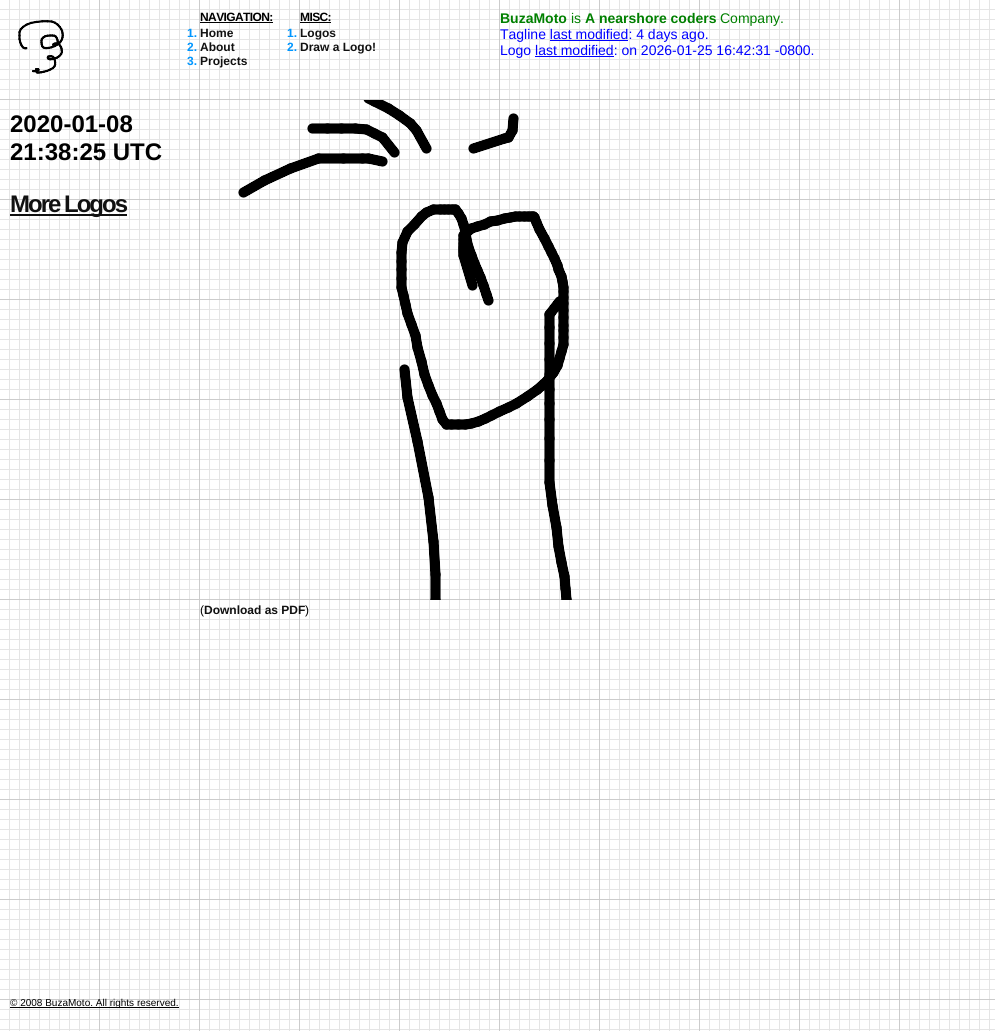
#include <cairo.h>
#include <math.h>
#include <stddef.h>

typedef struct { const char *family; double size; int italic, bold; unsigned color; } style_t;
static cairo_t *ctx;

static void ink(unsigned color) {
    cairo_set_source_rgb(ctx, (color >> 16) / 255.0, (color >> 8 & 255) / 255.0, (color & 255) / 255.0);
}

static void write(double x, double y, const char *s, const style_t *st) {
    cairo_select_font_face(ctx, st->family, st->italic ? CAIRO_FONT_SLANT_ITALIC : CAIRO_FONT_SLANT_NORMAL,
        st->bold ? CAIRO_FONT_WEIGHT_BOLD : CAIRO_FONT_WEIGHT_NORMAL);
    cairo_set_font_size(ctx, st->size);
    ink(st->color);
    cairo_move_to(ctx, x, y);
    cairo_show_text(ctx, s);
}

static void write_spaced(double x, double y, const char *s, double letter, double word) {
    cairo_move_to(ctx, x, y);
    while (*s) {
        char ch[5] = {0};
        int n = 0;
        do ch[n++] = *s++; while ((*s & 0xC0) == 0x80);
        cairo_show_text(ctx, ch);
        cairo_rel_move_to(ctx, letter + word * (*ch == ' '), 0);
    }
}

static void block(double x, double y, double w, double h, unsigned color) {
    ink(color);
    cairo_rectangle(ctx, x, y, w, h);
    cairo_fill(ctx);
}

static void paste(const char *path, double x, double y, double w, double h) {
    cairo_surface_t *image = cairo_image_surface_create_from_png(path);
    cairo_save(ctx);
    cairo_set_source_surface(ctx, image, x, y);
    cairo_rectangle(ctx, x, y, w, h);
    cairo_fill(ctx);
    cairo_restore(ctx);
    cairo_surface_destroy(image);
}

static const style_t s1 = {"Liberation Sans", 12, 0, 1, 0x0096ff};
static const style_t s2 = {"Liberation Sans", 12, 0, 1, 0x111111};
static const style_t s3 = {"Liberation Sans", 14, 0, 1, 0x008000};
static const style_t s4 = {"Liberation Sans", 14, 0, 0, 0x008000};
static const style_t s5 = {"Liberation Sans", 14, 0, 0, 0x0000ff};
static const style_t s6 = {"Liberation Sans", 24, 0, 1, 0x000000};
static const style_t s7 = {"Liberation Sans", 12, 0, 0, 0x000000};
static const style_t s8 = {"Liberation Sans", 10, 0, 0, 0x000000};

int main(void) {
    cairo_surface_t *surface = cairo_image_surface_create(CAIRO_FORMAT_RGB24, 995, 1031);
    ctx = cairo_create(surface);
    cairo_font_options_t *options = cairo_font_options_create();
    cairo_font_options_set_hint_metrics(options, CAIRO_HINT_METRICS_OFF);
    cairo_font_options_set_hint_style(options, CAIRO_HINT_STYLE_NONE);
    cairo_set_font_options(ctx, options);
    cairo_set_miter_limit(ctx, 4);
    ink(0xffffff);
    cairo_paint(ctx);
    paste("pic1.png", 0, 0, 995, 1031);
    paste("pic2.png", 18, 20, 46, 54);
    cairo_select_font_face(ctx, "Liberation Sans", CAIRO_FONT_SLANT_NORMAL, CAIRO_FONT_WEIGHT_BOLD);
    cairo_set_font_size(ctx, 12);
    ink(0x000000);
    write_spaced(200, 21, "NAVIGATION:", -0.6, 0);
    block(200, 22, 73, 1, 0x000000);
    write(187, 37, "1.", &s1);
    write(200, 37, "Home", &s2);
    write(187, 51, "2.", &s1);
    write(200, 51, "About", &s2);
    write(187, 65, "3.", &s1);
    write(200, 65, "Projects", &s2);
    ink(0x000000);
    write_spaced(300, 21, "MISC:", -0.6, 0);
    block(300, 22, 31, 1, 0x000000);
    write(287, 37, "1.", &s1);
    write(300, 37, "Logos", &s2);
    write(287, 51, "2.", &s1);
    write(300, 51, "Draw a Logo!", &s2);
    write(500, 23, "BuzaMoto", &s3);
    write(571, 23, "is", &s4);
    write(585, 23, "A nearshore coders", &s3);
    write(720, 23, "Company.", &s4);
    write(500, 39, "Tagline last modified: 4 days ago.", &s5);
    block(550, 40, 78, 1, 0x0000ff);
    write(500, 55, "Logo last modified: on 2026-01-25 16:42:31 -0800.", &s5);
    block(535, 56, 79, 1, 0x0000ff);
    write(10, 132, "2020-01-08", &s6);
    write(10, 160, "21:38:25 UTC", &s6);
    block(10, 214, 117, 2, 0x111111);
    write_spaced(10, 212, "More Logos", -2, 0);
    paste("pic3.png", 238, 100, 334, 500);
    write(200, 614, "(", &s7);
    write(204, 614, "Download as PDF", &s2);
    write(305, 614, ")", &s7);
    block(10, 1007, 169, 1, 0x000000);
    write(10, 1006, "© 2008 BuzaMoto. All rights reserved.", &s8);
    cairo_surface_write_to_png(surface, "screenshot.png");
    cairo_font_options_destroy(options);
    cairo_destroy(ctx);
    cairo_surface_destroy(surface);
    return 0;
}
